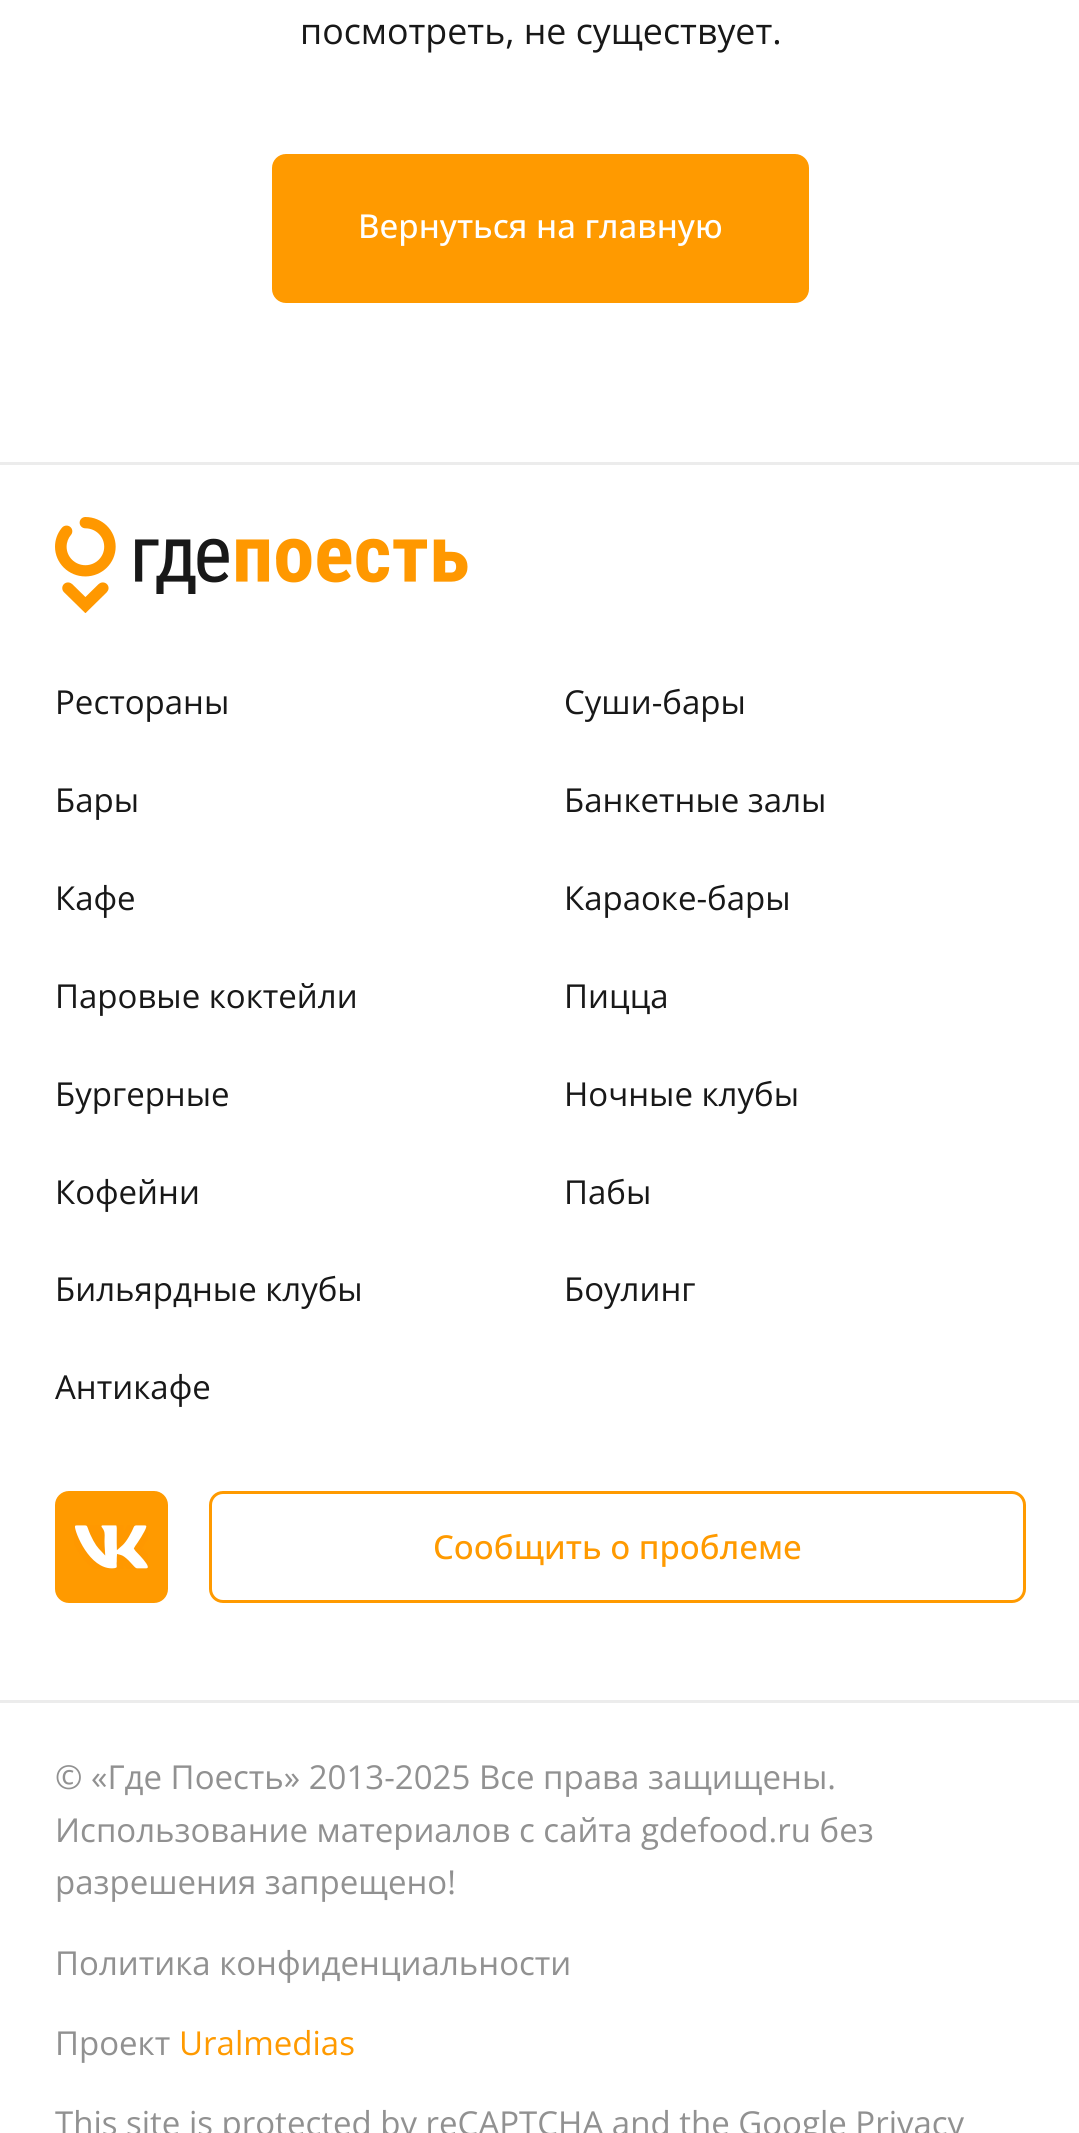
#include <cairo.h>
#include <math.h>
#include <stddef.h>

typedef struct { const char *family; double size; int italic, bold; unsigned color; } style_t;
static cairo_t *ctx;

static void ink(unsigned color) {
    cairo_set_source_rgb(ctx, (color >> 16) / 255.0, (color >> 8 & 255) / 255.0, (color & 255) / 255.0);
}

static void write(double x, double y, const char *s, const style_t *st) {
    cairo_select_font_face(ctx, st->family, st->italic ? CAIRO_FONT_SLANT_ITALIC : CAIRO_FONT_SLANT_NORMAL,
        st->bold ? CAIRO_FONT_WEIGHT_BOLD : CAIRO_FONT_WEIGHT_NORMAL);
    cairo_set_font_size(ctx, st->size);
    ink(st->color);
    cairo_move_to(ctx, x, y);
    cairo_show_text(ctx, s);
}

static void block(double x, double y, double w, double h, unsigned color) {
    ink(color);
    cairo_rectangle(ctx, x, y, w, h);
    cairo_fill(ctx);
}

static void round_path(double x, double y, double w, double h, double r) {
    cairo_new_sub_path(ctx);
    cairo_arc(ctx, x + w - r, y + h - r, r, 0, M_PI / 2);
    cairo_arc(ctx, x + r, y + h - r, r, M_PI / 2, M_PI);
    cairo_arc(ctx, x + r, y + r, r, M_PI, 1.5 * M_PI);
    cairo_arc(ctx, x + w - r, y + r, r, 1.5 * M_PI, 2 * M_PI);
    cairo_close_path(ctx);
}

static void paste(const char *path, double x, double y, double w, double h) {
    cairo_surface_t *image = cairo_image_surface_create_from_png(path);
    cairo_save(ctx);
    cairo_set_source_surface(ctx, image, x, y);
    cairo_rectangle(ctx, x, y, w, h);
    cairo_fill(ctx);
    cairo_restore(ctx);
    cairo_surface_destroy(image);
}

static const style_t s1 = {"Open Sans", 35.75, 0, 0, 0x181818};
static const style_t s2 = {"Open Sans Medium", 33, 0, 0, 0xffffff};
static const style_t s3 = {"Open Sans", 33, 0, 0, 0x181818};
static const style_t s4 = {"Open Sans Medium", 33, 0, 0, 0xff9a00};
static const style_t s5 = {"Open Sans", 33, 0, 0, 0x919191};
static const style_t s6 = {"Open Sans", 33, 0, 0, 0xff9a00};

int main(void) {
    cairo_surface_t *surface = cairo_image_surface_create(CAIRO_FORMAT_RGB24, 1079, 2133);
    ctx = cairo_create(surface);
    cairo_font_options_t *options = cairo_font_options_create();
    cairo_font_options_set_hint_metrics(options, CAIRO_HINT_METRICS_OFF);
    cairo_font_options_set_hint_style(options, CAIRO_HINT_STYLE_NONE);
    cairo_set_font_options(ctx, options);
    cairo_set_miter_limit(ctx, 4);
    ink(0xffffff);
    cairo_paint(ctx);
    write(300, 44, "посмотреть, не существует.", &s1);
    ink(0xff9a00);
    round_path(273.5, 155.5, 534, 146, 12.5);
    cairo_fill_preserve(ctx);
    cairo_set_line_width(ctx, 3);
    cairo_stroke(ctx);
    write(358, 238, "Вернуться на главную", &s2);
    block(0, 462, 1079, 3, 0xececec);
    paste("pic1.png", 55, 517, 413, 96);
    write(55, 714, "Рестораны", &s3);
    write(564, 714, "Суши-бары", &s3);
    write(55, 812, "Бары", &s3);
    write(564, 812, "Банкетные залы", &s3);
    write(55, 910, "Кафе", &s3);
    write(564, 910, "Караоке-бары", &s3);
    write(55, 1008, "Паровые коктейли", &s3);
    write(564, 1008, "Пицца", &s3);
    write(55, 1106, "Бургерные", &s3);
    write(564, 1106, "Ночные клубы", &s3);
    write(55, 1204, "Кофейни", &s3);
    write(564, 1204, "Пабы", &s3);
    write(55, 1301, "Бильярдные клубы", &s3);
    write(564, 1301, "Боулинг", &s3);
    write(55, 1399, "Антикафе", &s3);
    ink(0xff9a00);
    round_path(55, 1491, 113, 112, 14);
    cairo_fill(ctx);
    paste("pic2.png", 74, 1525, 74, 44);
    round_path(210.5, 1492.5, 814, 109, 12.5);
    cairo_stroke(ctx);
    write(433, 1559, "Сообщить о проблеме", &s4);
    block(0, 1700, 1079, 3, 0xececec);
    write(55, 1789, "© «Где Поесть» 2013-2025 Все права защищены.", &s5);
    write(55, 1842, "Использование материалов с сайта gdefood.ru без", &s5);
    write(55, 1894, "разрешения запрещено!", &s5);
    write(55, 1975, "Политика конфиденциальности", &s5);
    write(55, 2055, "Проект", &s5);
    write(179, 2055, "Uralmedias", &s6);
    write(55, 2135, "This site is protected by reCAPTCHA and the Google Privacy", &s5);
    cairo_surface_write_to_png(surface, "screenshot.png");
    cairo_font_options_destroy(options);
    cairo_destroy(ctx);
    cairo_surface_destroy(surface);
    return 0;
}
